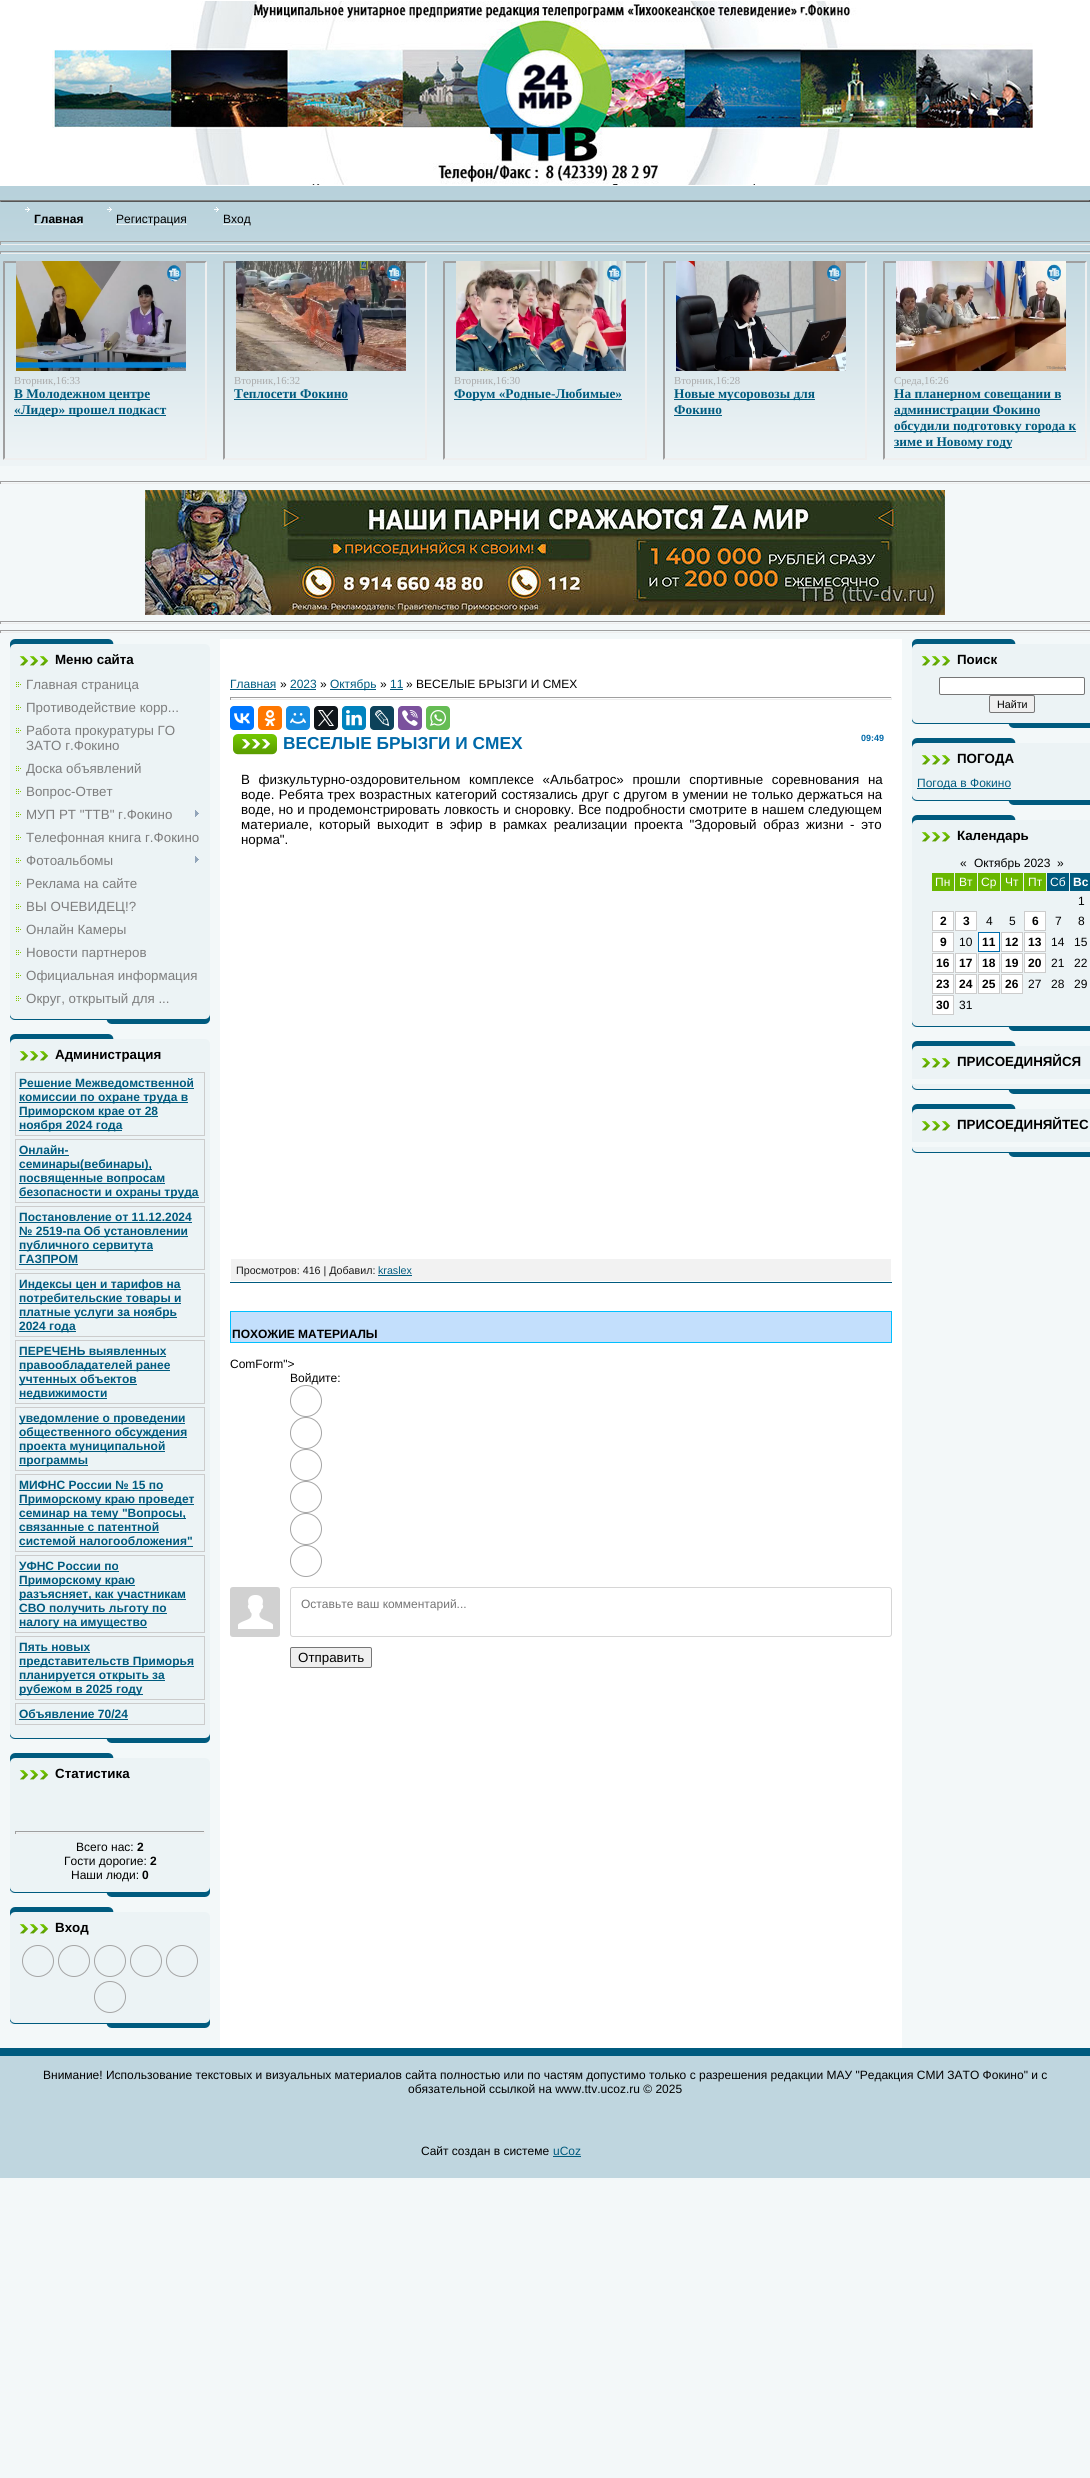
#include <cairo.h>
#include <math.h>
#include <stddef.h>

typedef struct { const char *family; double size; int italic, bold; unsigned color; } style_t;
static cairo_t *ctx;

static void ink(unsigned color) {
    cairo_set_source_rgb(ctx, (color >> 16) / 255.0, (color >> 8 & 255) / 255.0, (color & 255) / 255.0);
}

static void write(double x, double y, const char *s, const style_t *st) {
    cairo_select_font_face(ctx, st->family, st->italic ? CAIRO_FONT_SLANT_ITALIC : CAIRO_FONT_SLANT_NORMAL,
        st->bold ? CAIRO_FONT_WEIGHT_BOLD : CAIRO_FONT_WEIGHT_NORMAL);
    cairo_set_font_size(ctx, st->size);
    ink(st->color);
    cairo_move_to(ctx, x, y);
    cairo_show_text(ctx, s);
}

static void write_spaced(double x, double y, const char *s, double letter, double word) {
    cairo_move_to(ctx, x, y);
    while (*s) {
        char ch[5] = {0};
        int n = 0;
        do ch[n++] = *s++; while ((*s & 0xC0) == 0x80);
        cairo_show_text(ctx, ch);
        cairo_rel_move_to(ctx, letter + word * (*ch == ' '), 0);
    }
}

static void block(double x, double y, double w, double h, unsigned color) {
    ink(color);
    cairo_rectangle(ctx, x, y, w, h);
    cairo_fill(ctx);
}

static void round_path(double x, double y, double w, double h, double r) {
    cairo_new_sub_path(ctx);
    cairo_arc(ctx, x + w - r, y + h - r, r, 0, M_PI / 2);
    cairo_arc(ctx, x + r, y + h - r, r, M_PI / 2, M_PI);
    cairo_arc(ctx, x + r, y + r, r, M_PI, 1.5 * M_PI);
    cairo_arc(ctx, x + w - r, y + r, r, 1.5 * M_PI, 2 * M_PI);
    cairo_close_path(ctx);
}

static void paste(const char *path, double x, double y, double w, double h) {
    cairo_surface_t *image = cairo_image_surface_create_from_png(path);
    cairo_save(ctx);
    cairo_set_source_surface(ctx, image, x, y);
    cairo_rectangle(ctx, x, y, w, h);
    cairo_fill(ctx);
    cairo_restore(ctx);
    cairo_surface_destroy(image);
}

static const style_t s1 = {"Liberation Sans", 12, 0, 1, 0x000000};
static const style_t s2 = {"Liberation Sans", 12, 0, 0, 0x000000};
static const style_t s3 = {"Liberation Serif", 10.7, 0, 0, 0xa9a9a9};
static const style_t s4 = {"Liberation Serif", 13.35, 0, 1, 0x005b7f};
static const style_t s5 = {"Liberation Sans", 13.35, 0, 1, 0x000000};
static const style_t s6 = {"Liberation Sans", 13.35, 0, 0, 0x7d7d7d};
static const style_t s7 = {"Liberation Sans", 12, 0, 1, 0x005b7f};
static const style_t s8 = {"Liberation Sans", 12, 0, 0, 0x005b7f};
static const style_t s9 = {"Liberation Sans", 17.3, 0, 1, 0x0069a9};
static const style_t s10 = {"Liberation Sans", 9, 0, 1, 0x0069a9};
static const style_t s11 = {"Liberation Sans", 13.35, 0, 0, 0x000000};
static const style_t s12 = {"Liberation Sans", 10.7, 0, 0, 0x1a1a1a};
static const style_t s13 = {"Liberation Sans", 10.7, 0, 0, 0x005b7f};
static const style_t s14 = {"Liberation Sans", 12, 0, 0, 0x757575};
static const style_t s15 = {"Liberation Sans", 10.7, 0, 0, 0x000000};
static const style_t s16 = {"Liberation Sans", 12, 0, 0, 0xffffff};
static const style_t s17 = {"Liberation Sans", 12, 0, 1, 0xffffff};

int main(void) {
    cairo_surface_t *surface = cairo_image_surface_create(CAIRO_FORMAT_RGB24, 1090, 2478);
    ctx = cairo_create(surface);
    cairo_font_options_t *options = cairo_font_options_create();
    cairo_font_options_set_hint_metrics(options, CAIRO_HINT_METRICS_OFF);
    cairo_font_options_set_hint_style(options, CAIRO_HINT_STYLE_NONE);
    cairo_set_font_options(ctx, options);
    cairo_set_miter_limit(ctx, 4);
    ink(0xf3f8f9);
    cairo_paint(ctx);
    paste("pic1.png", 0, 186, 1090, 280);
    block(0, 0, 1090, 186, 0xffffff);
    paste("pic2.png", 52, 1, 981, 184);
    block(0, 200, 1090, 1, 0x808080);
    block(1089, 200, 1, 2, 0x555555);
    block(0, 201, 1090, 1, 0x555555);
    block(0, 200, 1, 2, 0x808080);
    paste("pic3.png", 25, 207, 5, 5);
    write(34, 223, "Главная", &s1);
    block(34, 224, 49, 1, 0xecf3f5);
    paste("pic3.png", 107, 207, 5, 5);
    block(116, 224, 71, 1, 0xecf3f5);
    write(116, 223, "Регистрация", &s2);
    paste("pic3.png", 214, 207, 5, 5);
    block(223, 224, 27, 1, 0xecf3f5);
    write(223, 223, "Вход", &s2);
    block(0, 241, 1090, 1, 0x9f9f9f);
    block(0, 244, 1090, 1, 0xeeeeee);
    block(0, 241, 1, 4, 0x9f9f9f);
    block(0, 251, 1090, 1, 0x9f9f9f);
    block(0, 253, 1090, 1, 0xeeeeee);
    block(0, 251, 1, 3, 0x9f9f9f);
    cairo_new_path(ctx);
    cairo_move_to(ctx, 3, 261);
    cairo_line_to(ctx, 207, 261);
    cairo_line_to(ctx, 205, 263);
    cairo_line_to(ctx, 5, 263);
    cairo_close_path(ctx);
    cairo_fill(ctx);
    ink(0xefefef);
    cairo_new_path(ctx);
    cairo_move_to(ctx, 207, 261);
    cairo_line_to(ctx, 207, 460);
    cairo_line_to(ctx, 205, 458);
    cairo_line_to(ctx, 205, 263);
    cairo_close_path(ctx);
    cairo_fill(ctx);
    cairo_new_path(ctx);
    cairo_move_to(ctx, 207, 460);
    cairo_line_to(ctx, 3, 460);
    cairo_line_to(ctx, 5, 458);
    cairo_line_to(ctx, 205, 458);
    cairo_close_path(ctx);
    cairo_fill(ctx);
    ink(0x9f9f9f);
    cairo_new_path(ctx);
    cairo_move_to(ctx, 3, 460);
    cairo_line_to(ctx, 3, 261);
    cairo_line_to(ctx, 5, 263);
    cairo_line_to(ctx, 5, 458);
    cairo_close_path(ctx);
    cairo_fill(ctx);
    paste("pic4.png", 16, 261, 170, 110);
    write(14, 384, "Вторник,16:33", &s3);
    block(14, 399, 136, 1, 0x005b7f);
    write(14, 398, "В Молодежном центре", &s4);
    block(14, 415, 152, 1, 0x005b7f);
    write(14, 414, "«Лидер» прошел подкаст", &s4);
    ink(0x9f9f9f);
    cairo_new_path(ctx);
    cairo_move_to(ctx, 223, 261);
    cairo_line_to(ctx, 427, 261);
    cairo_line_to(ctx, 425, 263);
    cairo_line_to(ctx, 225, 263);
    cairo_close_path(ctx);
    cairo_fill(ctx);
    ink(0xefefef);
    cairo_new_path(ctx);
    cairo_move_to(ctx, 427, 261);
    cairo_line_to(ctx, 427, 460);
    cairo_line_to(ctx, 425, 458);
    cairo_line_to(ctx, 425, 263);
    cairo_close_path(ctx);
    cairo_fill(ctx);
    cairo_new_path(ctx);
    cairo_move_to(ctx, 427, 460);
    cairo_line_to(ctx, 223, 460);
    cairo_line_to(ctx, 225, 458);
    cairo_line_to(ctx, 425, 458);
    cairo_close_path(ctx);
    cairo_fill(ctx);
    ink(0x9f9f9f);
    cairo_new_path(ctx);
    cairo_move_to(ctx, 223, 460);
    cairo_line_to(ctx, 223, 261);
    cairo_line_to(ctx, 225, 263);
    cairo_line_to(ctx, 225, 458);
    cairo_close_path(ctx);
    cairo_fill(ctx);
    paste("pic5.png", 236, 261, 170, 110);
    write(234, 384, "Вторник,16:32", &s3);
    write(234, 398, "Теплосети Фокино", &s4);
    block(234, 399, 114, 1, 0x005b7f);
    ink(0x9f9f9f);
    cairo_new_path(ctx);
    cairo_move_to(ctx, 443, 261);
    cairo_line_to(ctx, 647, 261);
    cairo_line_to(ctx, 645, 263);
    cairo_line_to(ctx, 445, 263);
    cairo_close_path(ctx);
    cairo_fill(ctx);
    ink(0xefefef);
    cairo_new_path(ctx);
    cairo_move_to(ctx, 647, 261);
    cairo_line_to(ctx, 647, 460);
    cairo_line_to(ctx, 645, 458);
    cairo_line_to(ctx, 645, 263);
    cairo_close_path(ctx);
    cairo_fill(ctx);
    cairo_new_path(ctx);
    cairo_move_to(ctx, 647, 460);
    cairo_line_to(ctx, 443, 460);
    cairo_line_to(ctx, 445, 458);
    cairo_line_to(ctx, 645, 458);
    cairo_close_path(ctx);
    cairo_fill(ctx);
    ink(0x9f9f9f);
    cairo_new_path(ctx);
    cairo_move_to(ctx, 443, 460);
    cairo_line_to(ctx, 443, 261);
    cairo_line_to(ctx, 445, 263);
    cairo_line_to(ctx, 445, 458);
    cairo_close_path(ctx);
    cairo_fill(ctx);
    paste("pic6.png", 456, 261, 170, 110);
    write(454, 384, "Вторник,16:30", &s3);
    block(454, 399, 168, 1, 0x005b7f);
    write(454, 398, "Форум «Родные-Любимые»", &s4);
    ink(0x9f9f9f);
    cairo_new_path(ctx);
    cairo_move_to(ctx, 663, 261);
    cairo_line_to(ctx, 867, 261);
    cairo_line_to(ctx, 865, 263);
    cairo_line_to(ctx, 665, 263);
    cairo_close_path(ctx);
    cairo_fill(ctx);
    ink(0xefefef);
    cairo_new_path(ctx);
    cairo_move_to(ctx, 867, 261);
    cairo_line_to(ctx, 867, 460);
    cairo_line_to(ctx, 865, 458);
    cairo_line_to(ctx, 865, 263);
    cairo_close_path(ctx);
    cairo_fill(ctx);
    cairo_new_path(ctx);
    cairo_move_to(ctx, 867, 460);
    cairo_line_to(ctx, 663, 460);
    cairo_line_to(ctx, 665, 458);
    cairo_line_to(ctx, 865, 458);
    cairo_close_path(ctx);
    cairo_fill(ctx);
    ink(0x9f9f9f);
    cairo_new_path(ctx);
    cairo_move_to(ctx, 663, 460);
    cairo_line_to(ctx, 663, 261);
    cairo_line_to(ctx, 665, 263);
    cairo_line_to(ctx, 665, 458);
    cairo_close_path(ctx);
    cairo_fill(ctx);
    paste("pic7.png", 676, 261, 170, 110);
    write(674, 384, "Вторник,16:28", &s3);
    block(674, 399, 141, 1, 0x005b7f);
    write(674, 398, "Новые мусоровозы для", &s4);
    write(674, 414, "Фокино", &s4);
    block(674, 415, 48, 1, 0x005b7f);
    ink(0x9f9f9f);
    cairo_new_path(ctx);
    cairo_move_to(ctx, 883, 261);
    cairo_line_to(ctx, 1087, 261);
    cairo_line_to(ctx, 1085, 263);
    cairo_line_to(ctx, 885, 263);
    cairo_close_path(ctx);
    cairo_fill(ctx);
    ink(0xefefef);
    cairo_new_path(ctx);
    cairo_move_to(ctx, 1087, 261);
    cairo_line_to(ctx, 1087, 460);
    cairo_line_to(ctx, 1085, 458);
    cairo_line_to(ctx, 1085, 263);
    cairo_close_path(ctx);
    cairo_fill(ctx);
    cairo_new_path(ctx);
    cairo_move_to(ctx, 1087, 460);
    cairo_line_to(ctx, 883, 460);
    cairo_line_to(ctx, 885, 458);
    cairo_line_to(ctx, 1085, 458);
    cairo_close_path(ctx);
    cairo_fill(ctx);
    ink(0x9f9f9f);
    cairo_new_path(ctx);
    cairo_move_to(ctx, 883, 460);
    cairo_line_to(ctx, 883, 261);
    cairo_line_to(ctx, 885, 263);
    cairo_line_to(ctx, 885, 458);
    cairo_close_path(ctx);
    cairo_fill(ctx);
    paste("pic8.png", 896, 261, 170, 110);
    write(894, 384, "Среда,16:26", &s3);
    block(894, 399, 167, 1, 0x005b7f);
    write(894, 398, "На планерном совещании в", &s4);
    block(894, 415, 146, 1, 0x005b7f);
    write(894, 414, "администрации Фокино", &s4);
    block(894, 431, 182, 1, 0x005b7f);
    write(894, 430, "обсудили подготовку города к", &s4);
    block(894, 447, 118, 1, 0x005b7f);
    write(894, 446, "зиме и Новому году", &s4);
    block(0, 481, 1090, 1, 0x9f9f9f);
    block(0, 483, 1090, 1, 0xeeeeee);
    block(0, 481, 1, 3, 0x9f9f9f);
    paste("pic9.png", 145, 490, 800, 125);
    block(0, 621, 1090, 1, 0x9f9f9f);
    block(0, 623, 1090, 1, 0xeeeeee);
    block(0, 621, 1, 3, 0x9f9f9f);
    block(0, 630, 1090, 1, 0x9f9f9f);
    block(0, 632, 1090, 1, 0xeeeeee);
    block(0, 630, 1, 3, 0x9f9f9f);
    paste("pic10.png", 10, 639, 200, 38);
    write(55, 664, "Меню сайта", &s5);
    paste("pic11.png", 10, 677, 200, 347);
    paste("pic12.png", 16, 682, 5, 5);
    write(26, 689, "Главная страница", &s6);
    paste("pic12.png", 16, 705, 5, 5);
    write(26, 712, "Противодействие корр...", &s6);
    paste("pic12.png", 16, 728, 5, 5);
    write(26, 735, "Работа прокуратуры ГО", &s6);
    write(26, 750, "ЗАТО г.Фокино", &s6);
    paste("pic12.png", 16, 766, 5, 5);
    write(26, 773, "Доска объявлений", &s6);
    paste("pic12.png", 16, 789, 5, 5);
    write(26, 796, "Вопрос-Ответ", &s6);
    paste("pic12.png", 16, 812, 5, 5);
    write(26, 819, "МУП РТ \"ТТВ\" г.Фокино", &s6);
    paste("pic13.png", 195, 810, 4, 7);
    paste("pic12.png", 16, 835, 5, 5);
    write(26, 842, "Телефонная книга г.Фокино", &s6);
    paste("pic12.png", 16, 858, 5, 5);
    write(26, 865, "Фотоальбомы", &s6);
    paste("pic13.png", 195, 856, 4, 7);
    paste("pic12.png", 16, 881, 5, 5);
    write(26, 888, "Реклама на сайте", &s6);
    paste("pic12.png", 16, 904, 5, 5);
    write(26, 911, "ВЫ ОЧЕВИДЕЦ!?", &s6);
    paste("pic12.png", 16, 927, 5, 5);
    write(26, 934, "Онлайн Камеры", &s6);
    paste("pic12.png", 16, 950, 5, 5);
    write(26, 957, "Новости партнеров", &s6);
    paste("pic12.png", 16, 973, 5, 5);
    write(26, 980, "Официальная информация", &s6);
    paste("pic12.png", 16, 996, 5, 5);
    write(26, 1003, "Округ, открытый для ...", &s6);
    paste("pic10.png", 10, 1034, 200, 38);
    write(55, 1059, "Администрация", &s5);
    paste("pic14.png", 10, 1072, 200, 671);
    cairo_rectangle(ctx, 15.5, 1072.5, 189, 63);
    ink(0xcccccc);
    cairo_set_line_width(ctx, 1);
    cairo_stroke(ctx);
    block(19, 1088, 175, 1, 0x005b7f);
    write(19, 1087, "Решение Межведомственной", &s7);
    block(19, 1102, 169, 1, 0x005b7f);
    write(19, 1101, "комиссии по охране труда в", &s7);
    block(19, 1116, 139, 1, 0x005b7f);
    write(19, 1115, "Приморском крае от 28", &s7);
    block(19, 1130, 103, 1, 0x005b7f);
    write(19, 1129, "ноября 2024 года", &s7);
    cairo_rectangle(ctx, 15.5, 1139.5, 189, 63);
    ink(0xcccccc);
    cairo_stroke(ctx);
    write(19, 1154, "Онлайн-", &s7);
    block(19, 1155, 50, 1, 0x005b7f);
    block(19, 1169, 133, 1, 0x005b7f);
    write(19, 1168, "семинары(вебинары),", &s7);
    block(19, 1183, 146, 1, 0x005b7f);
    write(19, 1182, "посвященные вопросам", &s7);
    block(19, 1197, 180, 1, 0x005b7f);
    write(19, 1196, "безопасности и охраны труда", &s7);
    cairo_rectangle(ctx, 15.5, 1206.5, 189, 63);
    ink(0xcccccc);
    cairo_stroke(ctx);
    write(19, 1221, "Постановление от 11.12.2024", &s7);
    block(19, 1222, 173, 1, 0x005b7f);
    block(19, 1236, 169, 1, 0x005b7f);
    write(19, 1235, "№ 2519-па Об установлении", &s7);
    block(19, 1250, 134, 1, 0x005b7f);
    write(19, 1249, "публичного сервитута", &s7);
    write(19, 1263, "ГАЗПРОМ", &s7);
    block(19, 1264, 59, 1, 0x005b7f);
    cairo_rectangle(ctx, 15.5, 1273.5, 189, 63);
    ink(0xcccccc);
    cairo_stroke(ctx);
    block(19, 1289, 162, 1, 0x005b7f);
    write(19, 1288, "Индексы цен и тарифов на", &s7);
    block(19, 1303, 162, 1, 0x005b7f);
    write(19, 1302, "потребительские товары и", &s7);
    block(19, 1317, 158, 1, 0x005b7f);
    write(19, 1316, "платные услуги за ноябрь", &s7);
    block(19, 1331, 57, 1, 0x005b7f);
    write(19, 1330, "2024 года", &s7);
    cairo_rectangle(ctx, 15.5, 1340.5, 189, 63);
    ink(0xcccccc);
    cairo_stroke(ctx);
    write(19, 1355, "ПЕРЕЧЕНЬ выявленных", &s7);
    block(19, 1356, 147, 1, 0x005b7f);
    block(19, 1370, 151, 1, 0x005b7f);
    write(19, 1369, "правообладателей ранее", &s7);
    block(19, 1384, 118, 1, 0x005b7f);
    write(19, 1383, "учтенных объектов", &s7);
    block(19, 1398, 88, 1, 0x005b7f);
    write(19, 1397, "недвижимости", &s7);
    cairo_rectangle(ctx, 15.5, 1407.5, 189, 63);
    ink(0xcccccc);
    cairo_stroke(ctx);
    block(19, 1423, 166, 1, 0x005b7f);
    write(19, 1422, "уведомление о проведении", &s7);
    block(19, 1437, 168, 1, 0x005b7f);
    write(19, 1436, "общественного обсуждения", &s7);
    block(19, 1451, 146, 1, 0x005b7f);
    write(19, 1450, "проекта муниципальной", &s7);
    block(19, 1465, 69, 1, 0x005b7f);
    write(19, 1464, "программы", &s7);
    cairo_rectangle(ctx, 15.5, 1474.5, 189, 77);
    ink(0xcccccc);
    cairo_stroke(ctx);
    write(19, 1489, "МИФНС России № 15 по", &s7);
    block(19, 1490, 144, 1, 0x005b7f);
    block(19, 1504, 175, 1, 0x005b7f);
    write(19, 1503, "Приморскому краю проведет", &s7);
    block(19, 1518, 167, 1, 0x005b7f);
    write(19, 1517, "семинар на тему \"Вопросы,", &s7);
    write(19, 1531, "связанные с патентной", &s7);
    block(19, 1532, 140, 1, 0x005b7f);
    write(19, 1545, "системой налогообложения\"", &s7);
    block(19, 1546, 174, 1, 0x005b7f);
    cairo_rectangle(ctx, 15.5, 1555.5, 189, 77);
    ink(0xcccccc);
    cairo_stroke(ctx);
    write(19, 1570, "УФНС России по", &s7);
    block(19, 1571, 100, 1, 0x005b7f);
    block(19, 1585, 116, 1, 0x005b7f);
    write(19, 1584, "Приморскому краю", &s7);
    block(19, 1599, 167, 1, 0x005b7f);
    write(19, 1598, "разъясняет, как участникам", &s7);
    block(19, 1613, 148, 1, 0x005b7f);
    write(19, 1612, "СВО получить льготу по", &s7);
    block(19, 1627, 128, 1, 0x005b7f);
    write(19, 1626, "налогу на имущество", &s7);
    cairo_rectangle(ctx, 15.5, 1636.5, 189, 63);
    ink(0xcccccc);
    cairo_stroke(ctx);
    write(19, 1651, "Пять новых", &s7);
    block(19, 1652, 71, 1, 0x005b7f);
    block(19, 1666, 175, 1, 0x005b7f);
    write(19, 1665, "представительств Приморья", &s7);
    block(19, 1680, 146, 1, 0x005b7f);
    write(19, 1679, "планируется открыть за", &s7);
    block(19, 1694, 124, 1, 0x005b7f);
    write(19, 1693, "рубежом в 2025 году", &s7);
    cairo_rectangle(ctx, 15.5, 1703.5, 189, 21);
    ink(0xcccccc);
    cairo_stroke(ctx);
    write(19, 1718, "Объявление 70/24", &s7);
    block(19, 1719, 109, 1, 0x005b7f);
    paste("pic10.png", 10, 1753, 200, 38);
    write(55, 1778, "Статистика", &s5);
    paste("pic15.png", 10, 1791, 200, 106);
    block(15, 1831, 190, 1, 0x9f9f9f);
    block(204, 1831, 1, 3, 0xeeeeee);
    block(15, 1833, 190, 1, 0xeeeeee);
    block(15, 1831, 1, 3, 0x9f9f9f);
    write(76, 1851, "Всего нас:", &s2);
    write(137, 1851, "2", &s1);
    write(64, 1865, "Гости дорогие:", &s2);
    write(150, 1865, "2", &s1);
    write(71, 1879, "Наши люди:", &s2);
    write(142, 1879, "0", &s1);
    paste("pic10.png", 10, 1907, 200, 38);
    write(55, 1932, "Вход", &s5);
    paste("pic16.png", 10, 1945, 200, 83);
    cairo_arc(ctx, 38, 1961, 15.5, 0, 2 * M_PI);
    ink(0xa5a5a5);
    cairo_stroke(ctx);
    cairo_arc(ctx, 74, 1961, 15.5, 0, 2 * M_PI);
    cairo_stroke(ctx);
    cairo_arc(ctx, 110, 1961, 15.5, 0, 2 * M_PI);
    cairo_stroke(ctx);
    cairo_arc(ctx, 146, 1961, 15.5, 0, 2 * M_PI);
    cairo_stroke(ctx);
    cairo_arc(ctx, 182, 1961, 15.5, 0, 2 * M_PI);
    cairo_stroke(ctx);
    cairo_arc(ctx, 110, 1997, 15.5, 0, 2 * M_PI);
    cairo_stroke(ctx);
    block(220, 639, 682, 1409, 0xffffff);
    write(230, 688, "Главная", &s8);
    block(230, 689, 46, 1, 0x005b7f);
    write(280, 688, "»", &s2);
    write(290, 688, "2023", &s8);
    block(290, 689, 26, 1, 0x005b7f);
    write(320, 688, "»", &s2);
    block(330, 689, 46, 1, 0x005b7f);
    write(330, 688, "Октябрь", &s8);
    write(380, 688, "»", &s2);
    write(390, 688, "11", &s8);
    block(390, 689, 13, 1, 0x005b7f);
    write(406, 688, "» ВЕСЕЛЫЕ БРЫЗГИ И СМЕХ", &s2);
    block(230, 697, 662, 1, 0x9f9f9f);
    block(891, 697, 1, 3, 0xeeeeee);
    block(230, 699, 662, 1, 0xeeeeee);
    block(230, 697, 1, 3, 0x9f9f9f);
    ink(0x0077ff);
    round_path(230, 706, 24, 24, 4);
    cairo_fill(ctx);
    paste("pic17.png", 234, 713, 16, 11);
    ink(0xff7700);
    round_path(258, 706, 24, 24, 4);
    cairo_fill(ctx);
    paste("pic18.png", 264, 710, 12, 16);
    ink(0x168de2);
    round_path(286, 706, 24, 24, 4);
    cairo_fill(ctx);
    paste("pic19.png", 290, 713, 16, 11);
    ink(0x0f1419);
    round_path(314, 706, 24, 24, 4);
    cairo_fill(ctx);
    paste("pic20.png", 318, 710, 16, 16);
    ink(0x0083be);
    round_path(342, 706, 24, 24, 4);
    cairo_fill(ctx);
    paste("pic21.png", 346, 710, 16, 16);
    ink(0x0d425a);
    round_path(370, 706, 24, 24, 4);
    cairo_fill(ctx);
    paste("pic22.png", 375, 710, 15, 16);
    ink(0x7b519d);
    round_path(398, 706, 24, 24, 4);
    cairo_fill(ctx);
    paste("pic23.png", 402, 710, 16, 16);
    ink(0x65bc54);
    round_path(426, 706, 24, 24, 4);
    cairo_fill(ctx);
    paste("pic24.png", 430, 710, 16, 16);
    block(230, 1282, 662, 1, 0x005b7f);
    paste("pic25.png", 233, 734, 44, 21);
    write(283, 749, "ВЕСЕЛЫЕ БРЫЗГИ И СМЕХ", &s9);
    write(861, 741, "09:49", &s10);
    cairo_select_font_face(ctx, "Liberation Sans", CAIRO_FONT_SLANT_NORMAL, CAIRO_FONT_WEIGHT_NORMAL);
    cairo_set_font_size(ctx, 13.35);
    ink(0x000000);
    write_spaced(241, 784, "В физкультурно-оздоровительном комплексе «Альбатрос» прошли спортивные соревнования на", 0, 5);
    write_spaced(241, 799, "воде. Ребята трех возрастных категорий состязались друг с другом в умении не только держаться на", 0, 0.5);
    write_spaced(241, 814, "воде, но и продемонстрировать ловкость и сноровку. Все подробности смотрите в нашем следующем", 0, 0.25);
    write_spaced(241, 829, "материале, который выходит в эфир в рамках реализации проекта \"Здоровый образ жизни - это", 0, 3);
    write(241, 844, "норма\".", &s11);
    block(231, 1259, 660, 22, 0xf2f2f2);
    write(236, 1274, "Просмотров: 416 | Добавил:", &s12);
    write(378, 1274, "kraslex", &s13);
    block(378, 1275, 34, 1, 0x005b7f);
    block(231, 1312, 660, 30, 0xc3dffc);
    block(230, 1311, 662, 1, 0x00bfff);
    block(891, 1311, 1, 32, 0x00bfff);
    block(230, 1342, 662, 1, 0x00bfff);
    block(230, 1311, 1, 32, 0x00bfff);
    write(232, 1338, "ПОХОЖИЕ МАТЕРИАЛЫ", &s1);
    write(230, 1368, "ComForm\">", &s2);
    write(290, 1382, "Войдите:", &s2);
    cairo_new_path(ctx);
    cairo_arc(ctx, 306, 1401, 15.5, 0, 2 * M_PI);
    ink(0xa5a5a5);
    cairo_stroke(ctx);
    cairo_arc(ctx, 306, 1433, 15.5, 0, 2 * M_PI);
    cairo_stroke(ctx);
    cairo_arc(ctx, 306, 1465, 15.5, 0, 2 * M_PI);
    cairo_stroke(ctx);
    cairo_arc(ctx, 306, 1497, 15.5, 0, 2 * M_PI);
    cairo_stroke(ctx);
    cairo_arc(ctx, 306, 1529, 15.5, 0, 2 * M_PI);
    cairo_stroke(ctx);
    cairo_arc(ctx, 306, 1561, 15.5, 0, 2 * M_PI);
    cairo_stroke(ctx);
    paste("pic26.png", 230, 1587, 50, 50);
    round_path(290.5, 1587.5, 601, 49, 2.5);
    ink(0xd6d6d6);
    cairo_stroke(ctx);
    write(301, 1608, "Оставьте ваш комментарий...", &s14);
    ink(0xefefef);
    round_path(290.5, 1647.5, 81, 20, 1.5);
    cairo_fill_preserve(ctx);
    ink(0x767676);
    cairo_stroke(ctx);
    write(298, 1662, "Отправить", &s11);
    paste("pic27.png", 912, 639, 178, 38);
    write(957, 664, "Поиск", &s5);
    paste("pic28.png", 912, 677, 178, 51);
    ink(0xffffff);
    round_path(939.5, 677.5, 145, 17, 1.5);
    cairo_fill_preserve(ctx);
    ink(0x767676);
    cairo_stroke(ctx);
    ink(0xefefef);
    round_path(989.5, 695.5, 45, 17, 1.5);
    cairo_fill_preserve(ctx);
    ink(0x767676);
    cairo_stroke(ctx);
    write(997, 708, "Найти", &s15);
    paste("pic27.png", 912, 738, 178, 38);
    write(957, 763, "ПОГОДА", &s5);
    paste("pic29.png", 912, 776, 178, 29);
    block(917, 788, 94, 1, 0x005b7f);
    write(917, 787, "Погода в Фокино", &s8);
    paste("pic27.png", 912, 815, 178, 38);
    write(957, 840, "Календарь", &s5);
    paste("pic30.png", 912, 853, 178, 178);
    write(960, 867, "«", &s2);
    write(974, 867, "Октябрь 2023", &s2);
    write(1057, 867, "»", &s2);
    block(932, 873, 22, 18, 0x69b700);
    write(935, 886, "Пн", &s16);
    block(955, 873, 22, 18, 0x69b700);
    write(959, 886, "Вт", &s16);
    block(978, 873, 22, 18, 0x69b700);
    write(981, 886, "Ср", &s16);
    block(1001, 873, 22, 18, 0x69b700);
    write(1005, 886, "Чт", &s16);
    block(1024, 873, 22, 18, 0x69b700);
    write(1028, 886, "Пт", &s16);
    block(1047, 873, 22, 18, 0x005b7f);
    write(1050, 886, "Сб", &s16);
    block(1070, 873, 20, 18, 0x005b7f);
    write(1073, 886, "Вс", &s17);
    write(1078, 905, "1", &s2);
    ink(0xffffff);
    cairo_rectangle(ctx, 932.5, 911.5, 21, 19);
    cairo_fill_preserve(ctx);
    ink(0xcccccc);
    cairo_stroke(ctx);
    write(940, 925, "2", &s1);
    ink(0xffffff);
    cairo_rectangle(ctx, 955.5, 911.5, 21, 19);
    cairo_fill_preserve(ctx);
    ink(0xcccccc);
    cairo_stroke(ctx);
    write(963, 925, "3", &s1);
    write(986, 925, "4", &s2);
    write(1009, 925, "5", &s2);
    ink(0xffffff);
    cairo_rectangle(ctx, 1024.5, 911.5, 21, 19);
    cairo_fill_preserve(ctx);
    ink(0xcccccc);
    cairo_stroke(ctx);
    write(1032, 925, "6", &s1);
    write(1055, 925, "7", &s2);
    write(1078, 925, "8", &s2);
    ink(0xffffff);
    cairo_rectangle(ctx, 932.5, 932.5, 21, 19);
    cairo_fill_preserve(ctx);
    ink(0xcccccc);
    cairo_stroke(ctx);
    write(940, 946, "9", &s1);
    write(959, 946, "10", &s2);
    ink(0xffffff);
    cairo_rectangle(ctx, 978.5, 932.5, 21, 19);
    cairo_fill_preserve(ctx);
    ink(0x016ead);
    cairo_stroke(ctx);
    write(982, 946, "11", &s1);
    ink(0xffffff);
    cairo_rectangle(ctx, 1001.5, 932.5, 21, 19);
    cairo_fill_preserve(ctx);
    ink(0xcccccc);
    cairo_stroke(ctx);
    write(1005, 946, "12", &s1);
    ink(0xffffff);
    cairo_rectangle(ctx, 1024.5, 932.5, 21, 19);
    cairo_fill_preserve(ctx);
    ink(0xcccccc);
    cairo_stroke(ctx);
    write(1028, 946, "13", &s1);
    write(1051, 946, "14", &s2);
    write(1074, 946, "15", &s2);
    ink(0xffffff);
    cairo_rectangle(ctx, 932.5, 953.5, 21, 19);
    cairo_fill_preserve(ctx);
    ink(0xcccccc);
    cairo_stroke(ctx);
    write(936, 967, "16", &s1);
    ink(0xffffff);
    cairo_rectangle(ctx, 955.5, 953.5, 21, 19);
    cairo_fill_preserve(ctx);
    ink(0xcccccc);
    cairo_stroke(ctx);
    write(959, 967, "17", &s1);
    ink(0xffffff);
    cairo_rectangle(ctx, 978.5, 953.5, 21, 19);
    cairo_fill_preserve(ctx);
    ink(0xcccccc);
    cairo_stroke(ctx);
    write(982, 967, "18", &s1);
    ink(0xffffff);
    cairo_rectangle(ctx, 1001.5, 953.5, 21, 19);
    cairo_fill_preserve(ctx);
    ink(0xcccccc);
    cairo_stroke(ctx);
    write(1005, 967, "19", &s1);
    ink(0xffffff);
    cairo_rectangle(ctx, 1024.5, 953.5, 21, 19);
    cairo_fill_preserve(ctx);
    ink(0xcccccc);
    cairo_stroke(ctx);
    write(1028, 967, "20", &s1);
    write(1051, 967, "21", &s2);
    write(1074, 967, "22", &s2);
    ink(0xffffff);
    cairo_rectangle(ctx, 932.5, 974.5, 21, 19);
    cairo_fill_preserve(ctx);
    ink(0xcccccc);
    cairo_stroke(ctx);
    write(936, 988, "23", &s1);
    ink(0xffffff);
    cairo_rectangle(ctx, 955.5, 974.5, 21, 19);
    cairo_fill_preserve(ctx);
    ink(0xcccccc);
    cairo_stroke(ctx);
    write(959, 988, "24", &s1);
    ink(0xffffff);
    cairo_rectangle(ctx, 978.5, 974.5, 21, 19);
    cairo_fill_preserve(ctx);
    ink(0xcccccc);
    cairo_stroke(ctx);
    write(982, 988, "25", &s1);
    ink(0xffffff);
    cairo_rectangle(ctx, 1001.5, 974.5, 21, 19);
    cairo_fill_preserve(ctx);
    ink(0xcccccc);
    cairo_stroke(ctx);
    write(1005, 988, "26", &s1);
    write(1028, 988, "27", &s2);
    write(1051, 988, "28", &s2);
    write(1074, 988, "29", &s2);
    ink(0xffffff);
    cairo_rectangle(ctx, 932.5, 995.5, 21, 19);
    cairo_fill_preserve(ctx);
    ink(0xcccccc);
    cairo_stroke(ctx);
    write(936, 1009, "30", &s1);
    write(959, 1009, "31", &s2);
    paste("pic27.png", 912, 1041, 178, 38);
    write(957, 1066, "ПРИСОЕДИНЯЙСЯ", &s5);
    paste("pic31.png", 912, 1084, 178, 10);
    paste("pic27.png", 912, 1104, 178, 38);
    write(957, 1129, "ПРИСОЕДИНЯЙТЕС", &s5);
    paste("pic31.png", 912, 1147, 178, 10);
    block(0, 2056, 1090, 122, 0xbfd6df);
    block(0, 2048, 1090, 8, 0x005b7f);
    write(43, 2079, "Внимание! Использование текстовых и визуальных материалов сайта полностью или по частям допустимо только с разрешения редакции МАУ \"Редакция СМИ ЗАТО Фокино\" и с", &s2);
    write(408, 2093, "обязательной ссылкой на www.ttv.ucoz.ru © 2025", &s2);
    write(421, 2155, "Сайт создан в системе", &s2);
    write(553, 2155, "uCoz", &s8);
    block(553, 2156, 28, 1, 0x005b7f);
    cairo_surface_write_to_png(surface, "screenshot.png");
    cairo_font_options_destroy(options);
    cairo_destroy(ctx);
    cairo_surface_destroy(surface);
    return 0;
}
